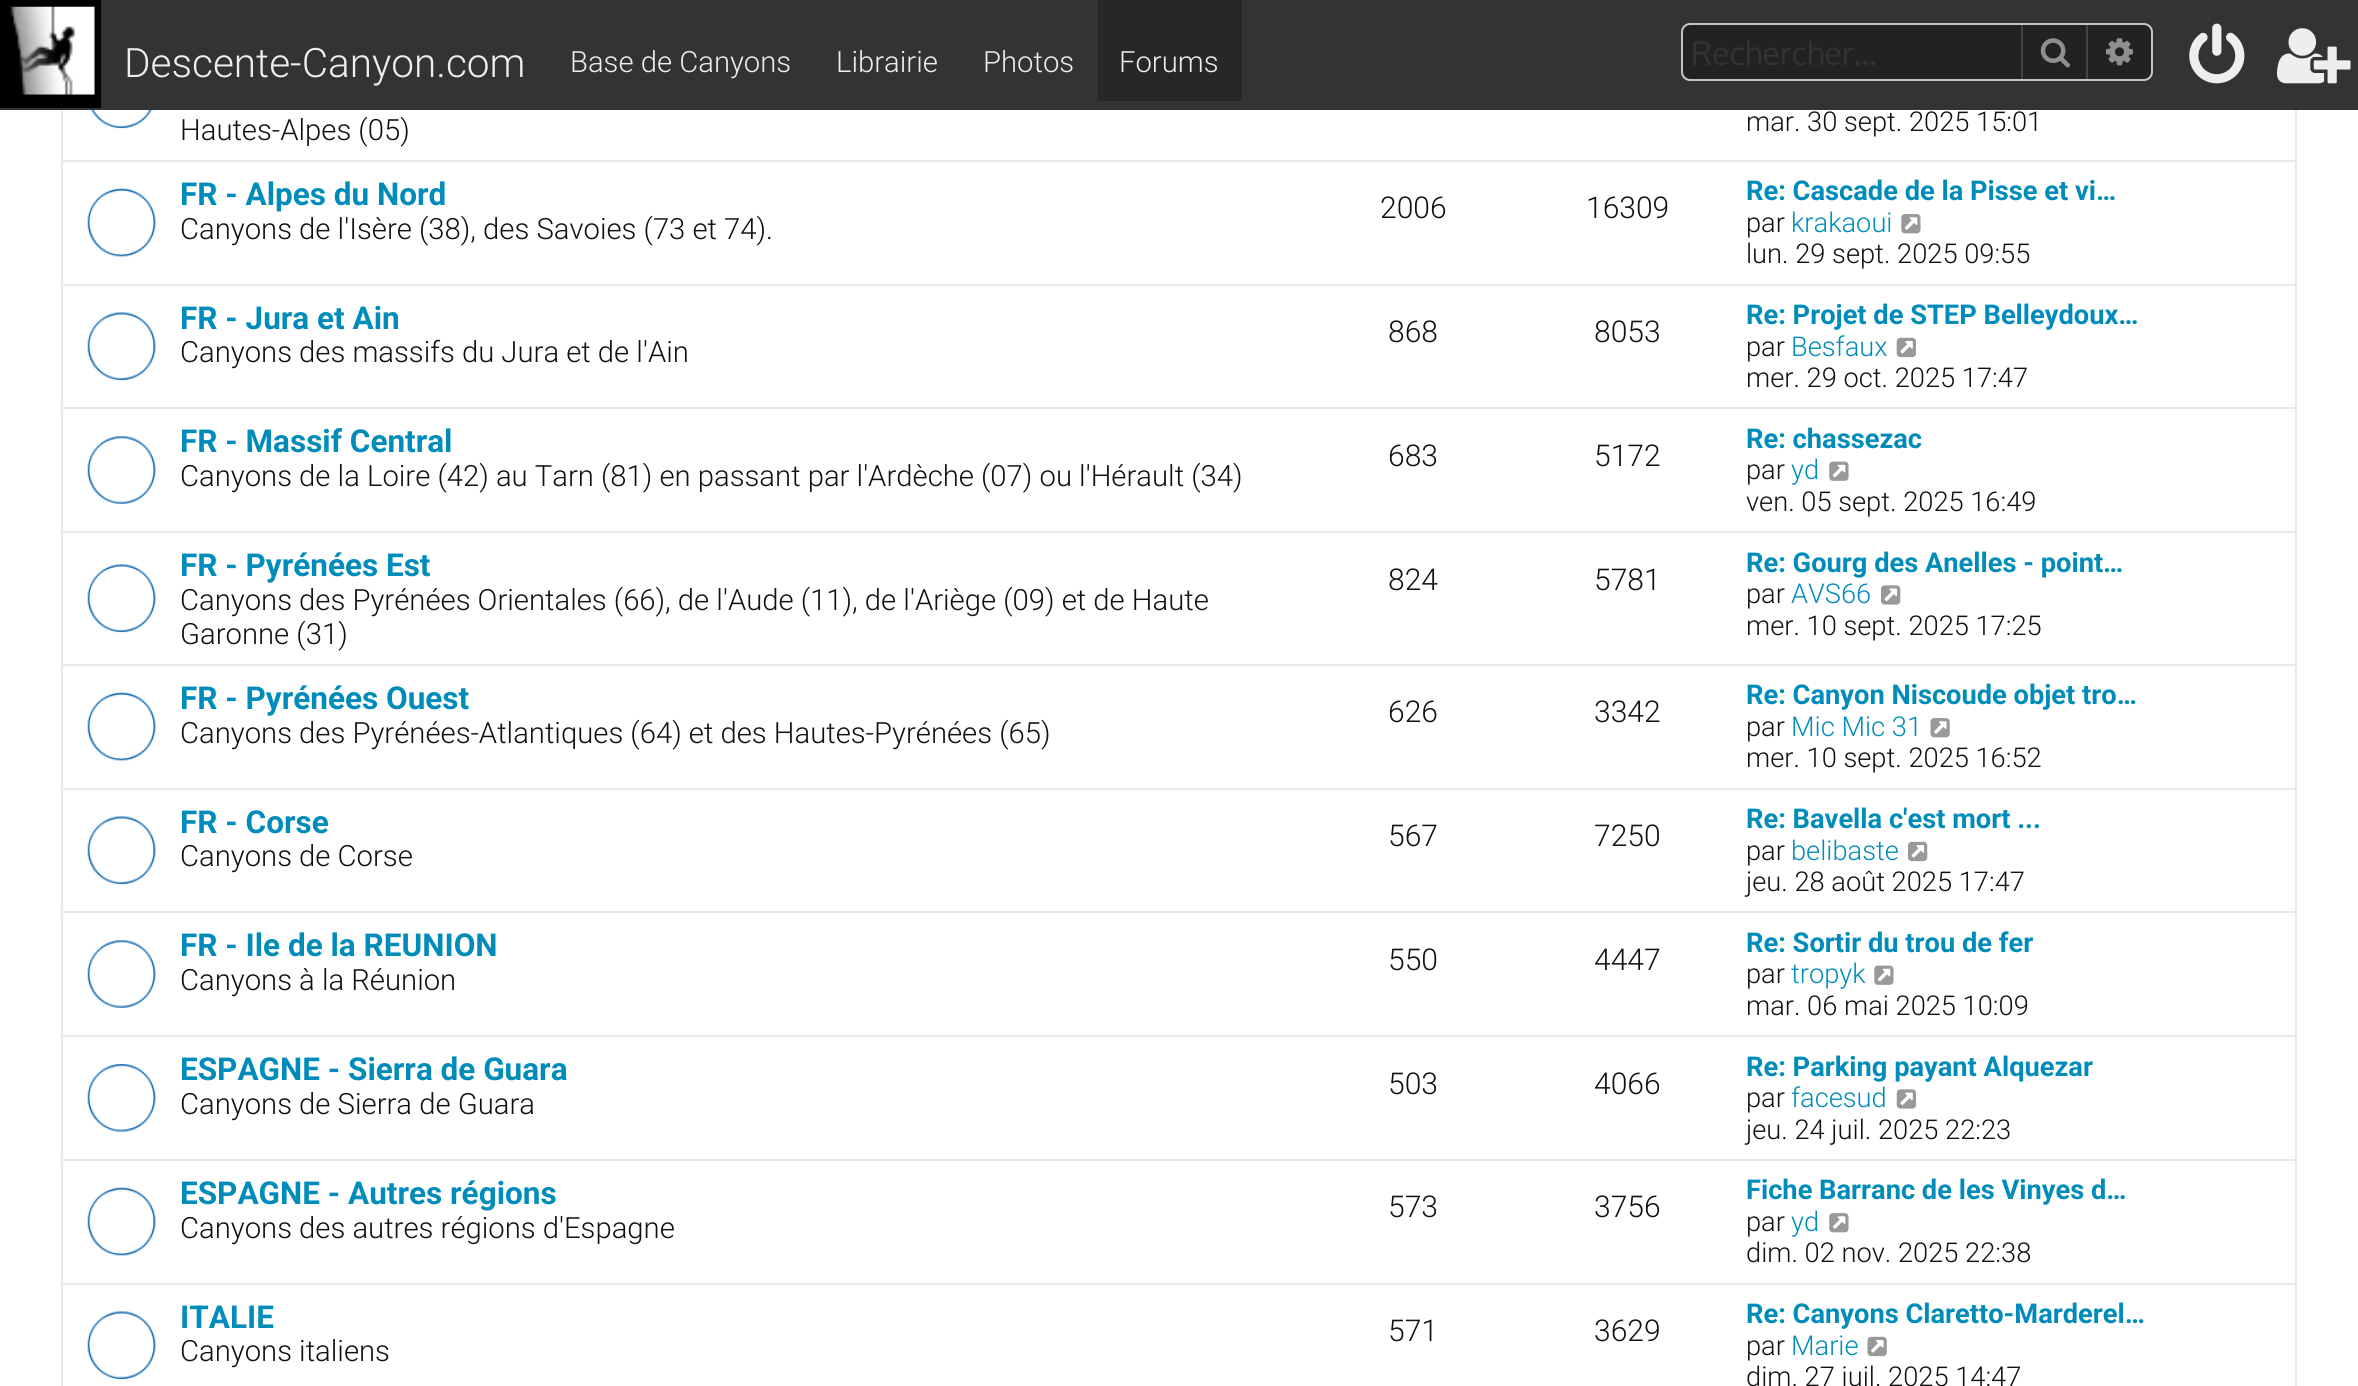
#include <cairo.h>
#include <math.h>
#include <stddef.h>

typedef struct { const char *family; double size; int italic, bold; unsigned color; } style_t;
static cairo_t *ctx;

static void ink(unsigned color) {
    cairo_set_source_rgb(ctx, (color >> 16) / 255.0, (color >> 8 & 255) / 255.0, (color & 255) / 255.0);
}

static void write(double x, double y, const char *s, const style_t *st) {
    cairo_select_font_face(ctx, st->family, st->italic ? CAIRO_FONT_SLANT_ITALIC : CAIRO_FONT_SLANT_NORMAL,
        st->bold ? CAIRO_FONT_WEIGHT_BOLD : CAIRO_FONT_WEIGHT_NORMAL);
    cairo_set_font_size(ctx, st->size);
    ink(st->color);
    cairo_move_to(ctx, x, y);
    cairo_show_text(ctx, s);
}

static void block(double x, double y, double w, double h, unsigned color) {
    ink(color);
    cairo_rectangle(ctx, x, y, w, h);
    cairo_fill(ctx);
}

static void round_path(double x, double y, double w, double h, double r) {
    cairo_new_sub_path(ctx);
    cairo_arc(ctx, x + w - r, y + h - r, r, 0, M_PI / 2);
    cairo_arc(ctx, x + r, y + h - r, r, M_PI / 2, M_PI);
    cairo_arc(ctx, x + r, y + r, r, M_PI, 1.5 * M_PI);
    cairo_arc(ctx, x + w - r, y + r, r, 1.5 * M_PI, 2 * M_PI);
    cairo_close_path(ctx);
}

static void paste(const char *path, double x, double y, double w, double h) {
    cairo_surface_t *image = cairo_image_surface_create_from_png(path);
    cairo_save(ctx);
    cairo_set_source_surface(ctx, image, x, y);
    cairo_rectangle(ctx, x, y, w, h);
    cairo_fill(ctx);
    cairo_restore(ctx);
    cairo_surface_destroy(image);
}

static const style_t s1 = {"Roboto Light", 40.5, 0, 0, 0xeeeeee};
static const style_t s2 = {"Roboto Light", 29.25, 0, 0, 0xeeeeee};
static const style_t s3 = {"Oxygen", 32.25, 0, 0, 0x333333};
static const style_t s4 = {"Roboto Light", 29.25, 0, 0, 0x111111};
static const style_t s5 = {"Roboto Light", 27.25, 0, 0, 0x111111};
static const style_t s6 = {"Roboto", 31.5, 0, 1, 0x008cba};
static const style_t s7 = {"Roboto Light", 30, 0, 0, 0x111111};
static const style_t s8 = {"Roboto", 27.25, 0, 1, 0x008cba};
static const style_t s9 = {"Roboto Light", 27.25, 0, 0, 0x008cba};

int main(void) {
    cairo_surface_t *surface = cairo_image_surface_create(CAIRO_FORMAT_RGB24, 2358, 1386);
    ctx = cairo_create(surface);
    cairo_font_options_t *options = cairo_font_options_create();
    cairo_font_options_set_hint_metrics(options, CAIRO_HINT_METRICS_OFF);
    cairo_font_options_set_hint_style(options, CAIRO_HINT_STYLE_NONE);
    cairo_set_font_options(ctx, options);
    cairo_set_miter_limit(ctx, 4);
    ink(0xffffff);
    cairo_paint(ctx);
    cairo_rectangle(ctx, 62, -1, 2234, 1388);
    ink(0xe6e9ed);
    cairo_stroke(ctx);
    block(0, 0, 2358, 110, 0x333333);
    block(0, 0, 101, 108, 0x000000);
    paste("pic1.png", 10, 6, 85, 89);
    write(124, 77, "Descente-Canyon.com", &s1);
    write(570, 72, "Base de Canyons", &s2);
    write(836, 72, "Librairie", &s2);
    write(983, 72, "Photos", &s2);
    block(1098, 0, 144, 101, 0x272727);
    write(1119, 72, "Forums", &s2);
    round_path(1682, 24, 470, 56, 8);
    ink(0xc7c3bf);
    cairo_stroke(ctx);
    ink(0x222222);
    cairo_new_path(ctx);
    cairo_move_to(ctx, 1692, 25);
    cairo_line_to(ctx, 2021, 25);
    cairo_line_to(ctx, 2021, 79);
    cairo_line_to(ctx, 1692, 79);
    cairo_curve_to(ctx, 1687, 79, 1683, 75, 1683, 70);
    cairo_line_to(ctx, 1683, 34);
    cairo_curve_to(ctx, 1683, 29, 1687, 25, 1692, 25);
    cairo_close_path(ctx);
    cairo_fill(ctx);
    write(1691, 65, "Rechercher…", &s3);
    block(2023, 25, 63, 54, 0x222222);
    block(2086, 25, 2, 54, 0x444444);
    block(2021, 25, 2, 54, 0x444444);
    paste("pic2.png", 2040, 38, 30, 30);
    ink(0x222222);
    cairo_new_path(ctx);
    cairo_move_to(ctx, 2088, 25);
    cairo_line_to(ctx, 2142, 25);
    cairo_curve_to(ctx, 2147, 25, 2151, 29, 2151, 34);
    cairo_line_to(ctx, 2151, 70);
    cairo_curve_to(ctx, 2151, 75, 2147, 79, 2142, 79);
    cairo_line_to(ctx, 2088, 79);
    cairo_close_path(ctx);
    cairo_fill(ctx);
    paste("pic3.png", 2106, 38, 27, 28);
    paste("pic4.png", 2189, 23, 56, 61);
    paste("pic5.png", 2277, 28, 74, 56);
    paste("pic6.png", 91, 110, 61, 19);
    write(180, 140, "Hautes-Alpes (05)", &s4);
    write(1746, 131, "mar. 30 sept. 2025 15:01", &s5);
    block(63, 160, 2232, 2, 0xe6e9ed);
    paste("pic7.png", 87, 188, 69, 69);
    write(180, 205, "FR - Alpes du Nord", &s6);
    write(180, 239, "Canyons de l'Isère (38), des Savoies (73 et 74).", &s4);
    write(1380, 218, "2006", &s7);
    write(1586, 218, "16309", &s7);
    write(1746, 200, "Re: Cascade de la Pisse et vi…", &s8);
    write(1746, 232, "par", &s5);
    write(1791, 232, "krakaoui", &s9);
    paste("pic8.png", 1901, 214, 20, 20);
    write(1746, 263, "lun. 29 sept. 2025 09:55", &s5);
    block(63, 284, 2232, 2, 0xe6e9ed);
    paste("pic9.png", 87, 312, 69, 69);
    write(180, 329, "FR - Jura et Ain", &s6);
    write(180, 362, "Canyons des massifs du Jura et de l'Ain", &s4);
    write(1388, 342, "868", &s7);
    write(1594, 342, "8053", &s7);
    write(1746, 324, "Re: Projet de STEP Belleydoux…", &s8);
    write(1746, 356, "par", &s5);
    write(1791, 356, "Besfaux", &s9);
    paste("pic10.png", 1896, 337, 20, 21);
    write(1746, 387, "mer. 29 oct. 2025 17:47", &s5);
    block(63, 407, 2232, 2, 0xe6e9ed);
    paste("pic11.png", 87, 436, 69, 68);
    write(180, 452, "FR - Massif Central", &s6);
    write(180, 486, "Canyons de la Loire (42) au Tarn (81) en passant par l'Ardèche (07) ou l'Hérault (34)", &s4);
    write(1388, 466, "683", &s7);
    write(1594, 466, "5172", &s7);
    write(1746, 448, "Re: chassezac", &s8);
    write(1746, 479, "par", &s5);
    write(1791, 479, "yd", &s9);
    paste("pic12.png", 1829, 461, 20, 20);
    write(1746, 511, "ven. 05 sept. 2025 16:49", &s5);
    block(63, 531, 2232, 2, 0xe6e9ed);
    paste("pic9.png", 87, 564, 69, 69);
    write(180, 576, "FR - Pyrénées Est", &s6);
    write(180, 610, "Canyons des Pyrénées Orientales (66), de l'Aude (11), de l'Ariège (09) et de Haute", &s4);
    write(180, 644, "Garonne (31)", &s4);
    write(1388, 590, "824", &s7);
    write(1594, 590, "5781", &s7);
    write(1746, 572, "Re: Gourg des Anelles - point…", &s8);
    write(1746, 603, "par", &s5);
    write(1791, 603, "AVS66", &s9);
    paste("pic13.png", 1881, 585, 20, 20);
    write(1746, 635, "mer. 10 sept. 2025 17:25", &s5);
    block(63, 664, 2232, 2, 0xe6e9ed);
    paste("pic7.png", 87, 692, 69, 69);
    write(180, 709, "FR - Pyrénées Ouest", &s6);
    write(180, 743, "Canyons des Pyrénées-Atlantiques (64) et des Hautes-Pyrénées (65)", &s4);
    write(1388, 722, "626", &s7);
    write(1594, 722, "3342", &s7);
    write(1746, 704, "Re: Canyon Niscoude objet tro…", &s8);
    write(1746, 736, "par", &s5);
    write(1791, 736, "Mic Mic 31", &s9);
    paste("pic14.png", 1930, 718, 20, 20);
    write(1746, 767, "mer. 10 sept. 2025 16:52", &s5);
    block(63, 788, 2232, 2, 0xe6e9ed);
    paste("pic9.png", 87, 816, 69, 69);
    write(180, 833, "FR - Corse", &s6);
    write(180, 866, "Canyons de Corse", &s4);
    write(1388, 846, "567", &s7);
    write(1594, 846, "7250", &s7);
    write(1746, 828, "Re: Bavella c'est mort ...", &s8);
    write(1746, 860, "par", &s5);
    write(1791, 860, "belibaste", &s9);
    paste("pic15.png", 1908, 841, 20, 21);
    write(1746, 891, "jeu. 28 août 2025 17:47", &s5);
    block(63, 911, 2232, 2, 0xe6e9ed);
    paste("pic16.png", 87, 940, 69, 68);
    write(180, 956, "FR - Ile de la REUNION", &s6);
    write(180, 990, "Canyons à la Réunion", &s4);
    write(1388, 970, "550", &s7);
    write(1594, 970, "4447", &s7);
    write(1746, 952, "Re: Sortir du trou de fer", &s8);
    write(1746, 983, "par", &s5);
    write(1791, 983, "tropyk", &s9);
    paste("pic12.png", 1874, 965, 20, 20);
    write(1746, 1015, "mar. 06 mai 2025 10:09", &s5);
    block(63, 1035, 2232, 2, 0xe6e9ed);
    paste("pic17.png", 87, 1064, 69, 68);
    write(180, 1080, "ESPAGNE - Sierra de Guara", &s6);
    write(180, 1114, "Canyons de Sierra de Guara", &s4);
    write(1388, 1094, "503", &s7);
    write(1594, 1094, "4066", &s7);
    write(1746, 1076, "Re: Parking payant Alquezar", &s8);
    write(1746, 1107, "par", &s5);
    write(1791, 1107, "facesud", &s9);
    paste("pic18.png", 1896, 1089, 20, 20);
    write(1746, 1139, "jeu. 24 juil. 2025 22:23", &s5);
    block(63, 1159, 2232, 2, 0xe6e9ed);
    paste("pic7.png", 87, 1187, 69, 69);
    write(180, 1204, "ESPAGNE - Autres régions", &s6);
    write(180, 1238, "Canyons des autres régions d'Espagne", &s4);
    write(1388, 1217, "573", &s7);
    write(1594, 1217, "3756", &s7);
    write(1746, 1199, "Fiche Barranc de les Vinyes d…", &s8);
    write(1746, 1231, "par", &s5);
    write(1791, 1231, "yd", &s9);
    paste("pic8.png", 1829, 1213, 20, 20);
    write(1746, 1262, "dim. 02 nov. 2025 22:38", &s5);
    block(63, 1283, 2232, 2, 0xe6e9ed);
    paste("pic9.png", 87, 1311, 69, 69);
    write(180, 1328, "ITALIE", &s6);
    write(180, 1361, "Canyons italiens", &s4);
    write(1388, 1341, "571", &s7);
    write(1594, 1341, "3629", &s7);
    write(1746, 1323, "Re: Canyons Claretto-Marderel…", &s8);
    write(1746, 1355, "par", &s5);
    write(1791, 1355, "Marie", &s9);
    paste("pic19.png", 1867, 1336, 20, 21);
    write(1746, 1386, "dim. 27 juil. 2025 14:47", &s5);
    cairo_surface_write_to_png(surface, "screenshot.png");
    cairo_font_options_destroy(options);
    cairo_destroy(ctx);
    cairo_surface_destroy(surface);
    return 0;
}
